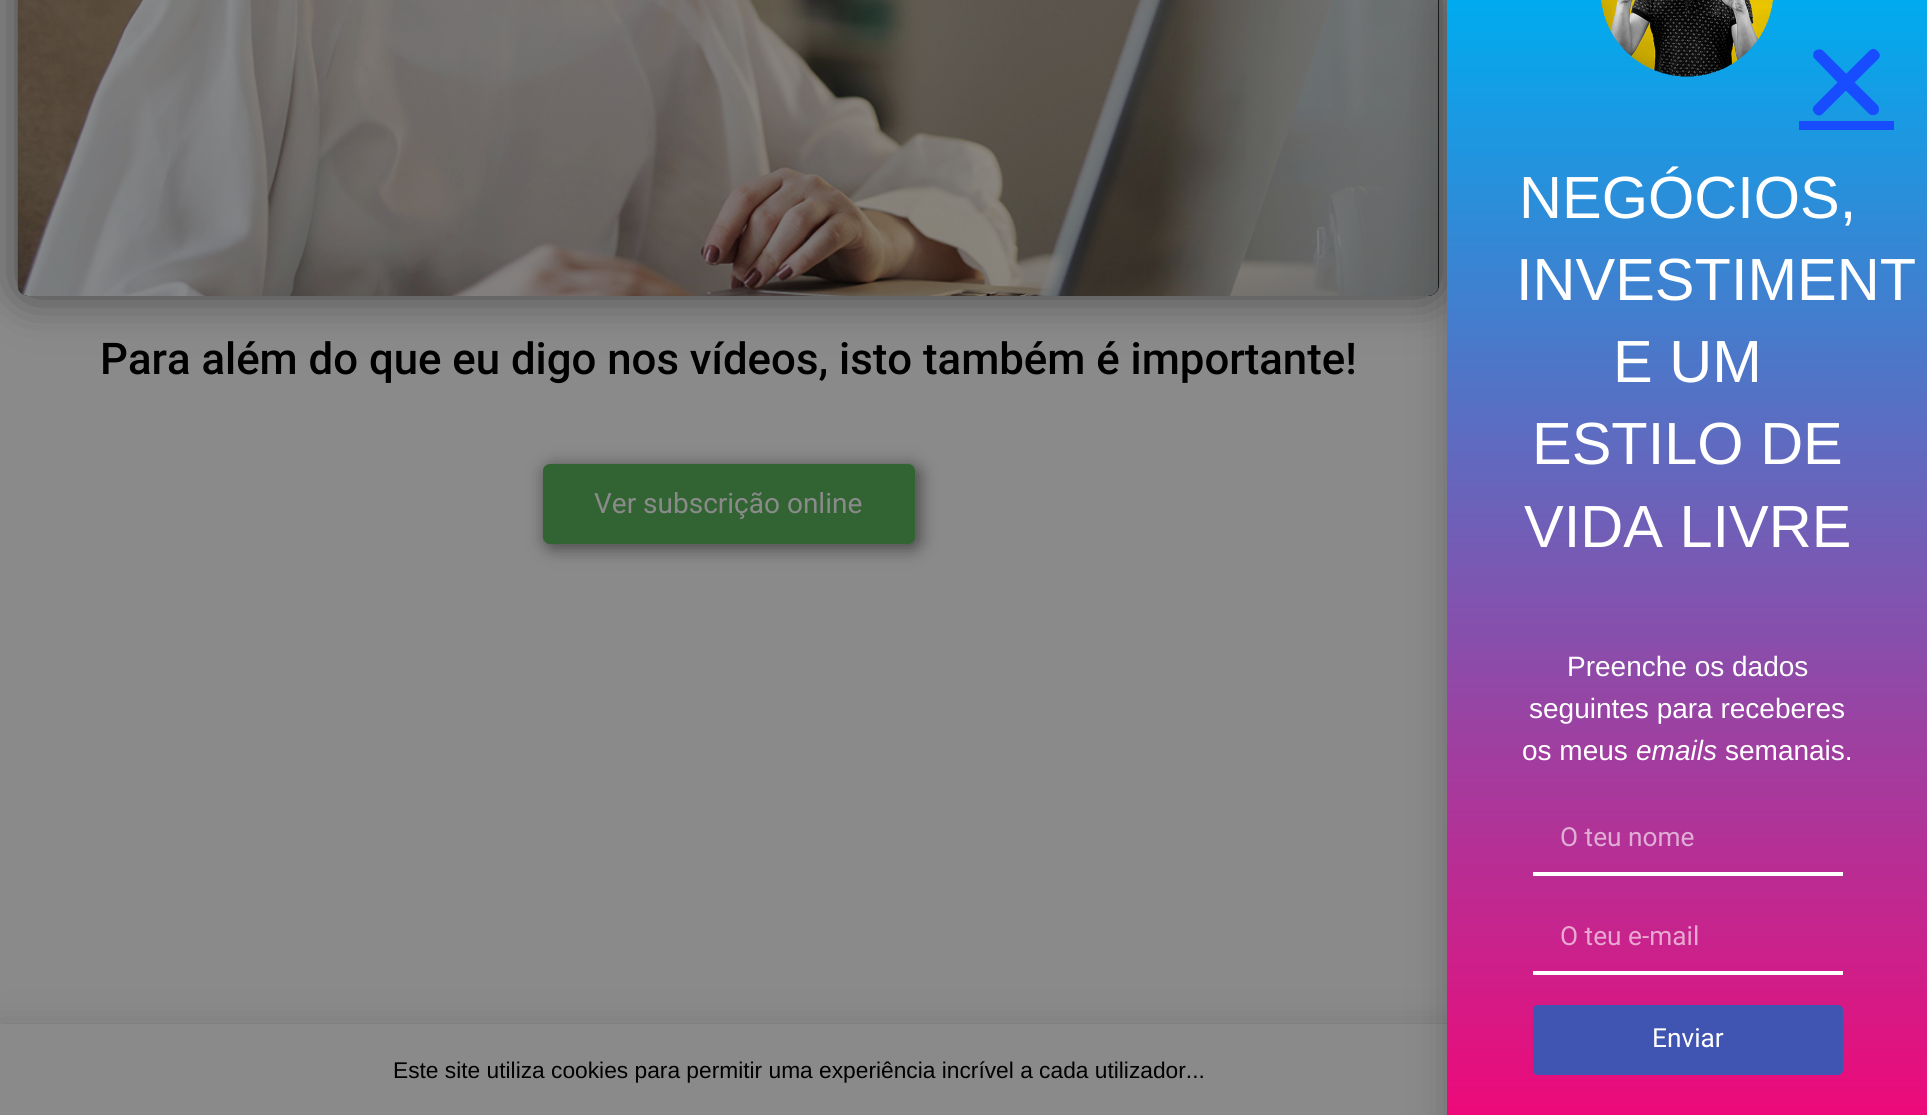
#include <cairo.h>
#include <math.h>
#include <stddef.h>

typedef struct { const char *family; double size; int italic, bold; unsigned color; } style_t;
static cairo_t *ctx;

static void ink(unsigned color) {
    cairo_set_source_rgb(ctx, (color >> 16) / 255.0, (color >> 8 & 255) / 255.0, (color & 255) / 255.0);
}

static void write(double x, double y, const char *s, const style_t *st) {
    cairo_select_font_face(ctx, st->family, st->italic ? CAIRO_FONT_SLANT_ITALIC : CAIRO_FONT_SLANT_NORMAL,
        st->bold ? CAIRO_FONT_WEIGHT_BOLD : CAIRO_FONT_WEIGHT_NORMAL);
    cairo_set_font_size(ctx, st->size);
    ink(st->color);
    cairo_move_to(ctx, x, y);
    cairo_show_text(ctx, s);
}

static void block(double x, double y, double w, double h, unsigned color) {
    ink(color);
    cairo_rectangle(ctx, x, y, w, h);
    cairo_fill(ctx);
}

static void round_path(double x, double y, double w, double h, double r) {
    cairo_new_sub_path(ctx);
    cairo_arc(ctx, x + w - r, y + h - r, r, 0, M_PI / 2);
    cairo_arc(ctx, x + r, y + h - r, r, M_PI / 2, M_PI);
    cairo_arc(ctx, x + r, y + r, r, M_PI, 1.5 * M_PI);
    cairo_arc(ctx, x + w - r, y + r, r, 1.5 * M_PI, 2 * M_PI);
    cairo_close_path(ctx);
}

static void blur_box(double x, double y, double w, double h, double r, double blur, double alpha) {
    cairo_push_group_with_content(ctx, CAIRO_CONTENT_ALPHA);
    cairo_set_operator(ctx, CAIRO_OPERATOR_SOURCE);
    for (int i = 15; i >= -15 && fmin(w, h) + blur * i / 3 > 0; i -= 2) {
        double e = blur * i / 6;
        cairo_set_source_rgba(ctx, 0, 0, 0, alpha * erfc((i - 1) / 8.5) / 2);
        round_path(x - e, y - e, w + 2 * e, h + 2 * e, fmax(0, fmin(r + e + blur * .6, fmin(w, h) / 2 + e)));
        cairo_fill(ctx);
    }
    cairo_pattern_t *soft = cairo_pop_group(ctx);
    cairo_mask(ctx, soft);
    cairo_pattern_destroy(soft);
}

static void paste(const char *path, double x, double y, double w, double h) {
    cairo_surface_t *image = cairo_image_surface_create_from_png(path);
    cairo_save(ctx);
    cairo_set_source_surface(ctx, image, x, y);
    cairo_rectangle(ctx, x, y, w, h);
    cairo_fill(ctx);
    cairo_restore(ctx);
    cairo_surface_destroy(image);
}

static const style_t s1 = {"Roboto Medium", 43.75, 0, 0, 0x000000};
static const style_t s2 = {"Roboto", 28, 0, 0, 0x8a8a8a};
static const style_t s3 = {"Liberation Sans", 59.5, 0, 0, 0xffffff};
static const style_t s4 = {"Liberation Sans", 28, 0, 0, 0xffffff};
static const style_t s5 = {"Liberation Sans", 28, 1, 0, 0xffffff};
static const style_t s6 = {"Roboto", 26.25, 0, 0, 0xe0add5};
static const style_t s7 = {"Roboto", 26.25, 0, 0, 0xe9a7d1};
static const style_t s8 = {"Roboto", 26.25, 0, 0, 0xffffff};
static const style_t s9 = {"Liberation Sans", 22.75, 0, 0, 0x000000};

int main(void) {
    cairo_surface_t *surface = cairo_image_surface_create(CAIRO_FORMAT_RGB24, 1927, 1115);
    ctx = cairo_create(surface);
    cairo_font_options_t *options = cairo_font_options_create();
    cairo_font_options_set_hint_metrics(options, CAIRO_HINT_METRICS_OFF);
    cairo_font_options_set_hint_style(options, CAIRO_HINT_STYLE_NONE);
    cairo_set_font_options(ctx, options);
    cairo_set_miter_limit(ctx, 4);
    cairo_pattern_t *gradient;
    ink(0x8a8a8a);
    cairo_paint(ctx);
    ink(0x000000);
    blur_box(18, -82, 1421, 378, 11, 23.5, 0.5);
    ink(0x000000);
    round_path(18, -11, 1421, 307, 11);
    cairo_fill(ctx);
    paste("pic1.png", 17, 0, 1422, 296);
    write(100, 374, "Para além do que eu digo nos vídeos, isto também é importante!", &s1);
    ink(0x000000);
    blur_box(546, 467, 373, 81, 7, 9, 0.5);
    ink(0x326332);
    round_path(543, 464, 372, 80, 7);
    cairo_fill(ctx);
    write(594, 513, "Ver subscrição online", &s2);
    ink(0x000000);
    blur_box(-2, 1033, 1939, 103, 0, 20, 0.2);
    block(0, 1024, 1447, 91, 0x8a8a8a);
    ink(0x000000);
    blur_box(1446, 9, 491, 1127, 0, 20, 0.2);
    gradient = cairo_pattern_create_linear(1688, 0, 1688, 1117);
    cairo_pattern_add_color_stop_rgba(gradient, 0, 0, 0.671, 0.937, 1);
    cairo_pattern_add_color_stop_rgba(gradient, 1, 0.933, 0.035, 0.475, 1);
    cairo_set_source(ctx, gradient);
    cairo_pattern_destroy(gradient);
    cairo_rectangle(ctx, 1447, 0, 480, 1115);
    cairo_fill(ctx);
    paste("pic2.png", 1812, 48, 68, 68);
    block(1799, 121, 95, 9, 0x184dff);
    paste("pic3.png", 1601, 0, 173, 77);
    write(1519, 218, "NEGÓCIOS,", &s3);
    write(1516, 300, "INVESTIMENT", &s3);
    write(1613, 382, "E UM", &s3);
    write(1532, 464, "ESTILO DE", &s3);
    write(1524, 547, "VIDA LIVRE", &s3);
    write(1567, 676, "Preenche os dados", &s4);
    write(1529, 718, "seguintes para receberes", &s4);
    write(1522, 760, "os meus", &s4);
    write(1636, 760, "emails", &s5);
    write(1725, 760, "semanais.", &s4);
    block(1533, 872, 310, 4, 0xffffff);
    write(1560, 846, "O teu nome", &s6);
    block(1533, 971, 310, 4, 0xffffff);
    write(1560, 945, "O teu e-mail", &s7);
    ink(0x4054b2);
    round_path(1533, 1005, 310, 70, 5);
    cairo_fill(ctx);
    write(1652, 1047, "Enviar", &s8);
    write(393, 1078, "Este site utiliza cookies para permitir uma experiência incrível a cada utilizador...", &s9);
    cairo_surface_write_to_png(surface, "screenshot.png");
    cairo_font_options_destroy(options);
    cairo_destroy(ctx);
    cairo_surface_destroy(surface);
    return 0;
}
